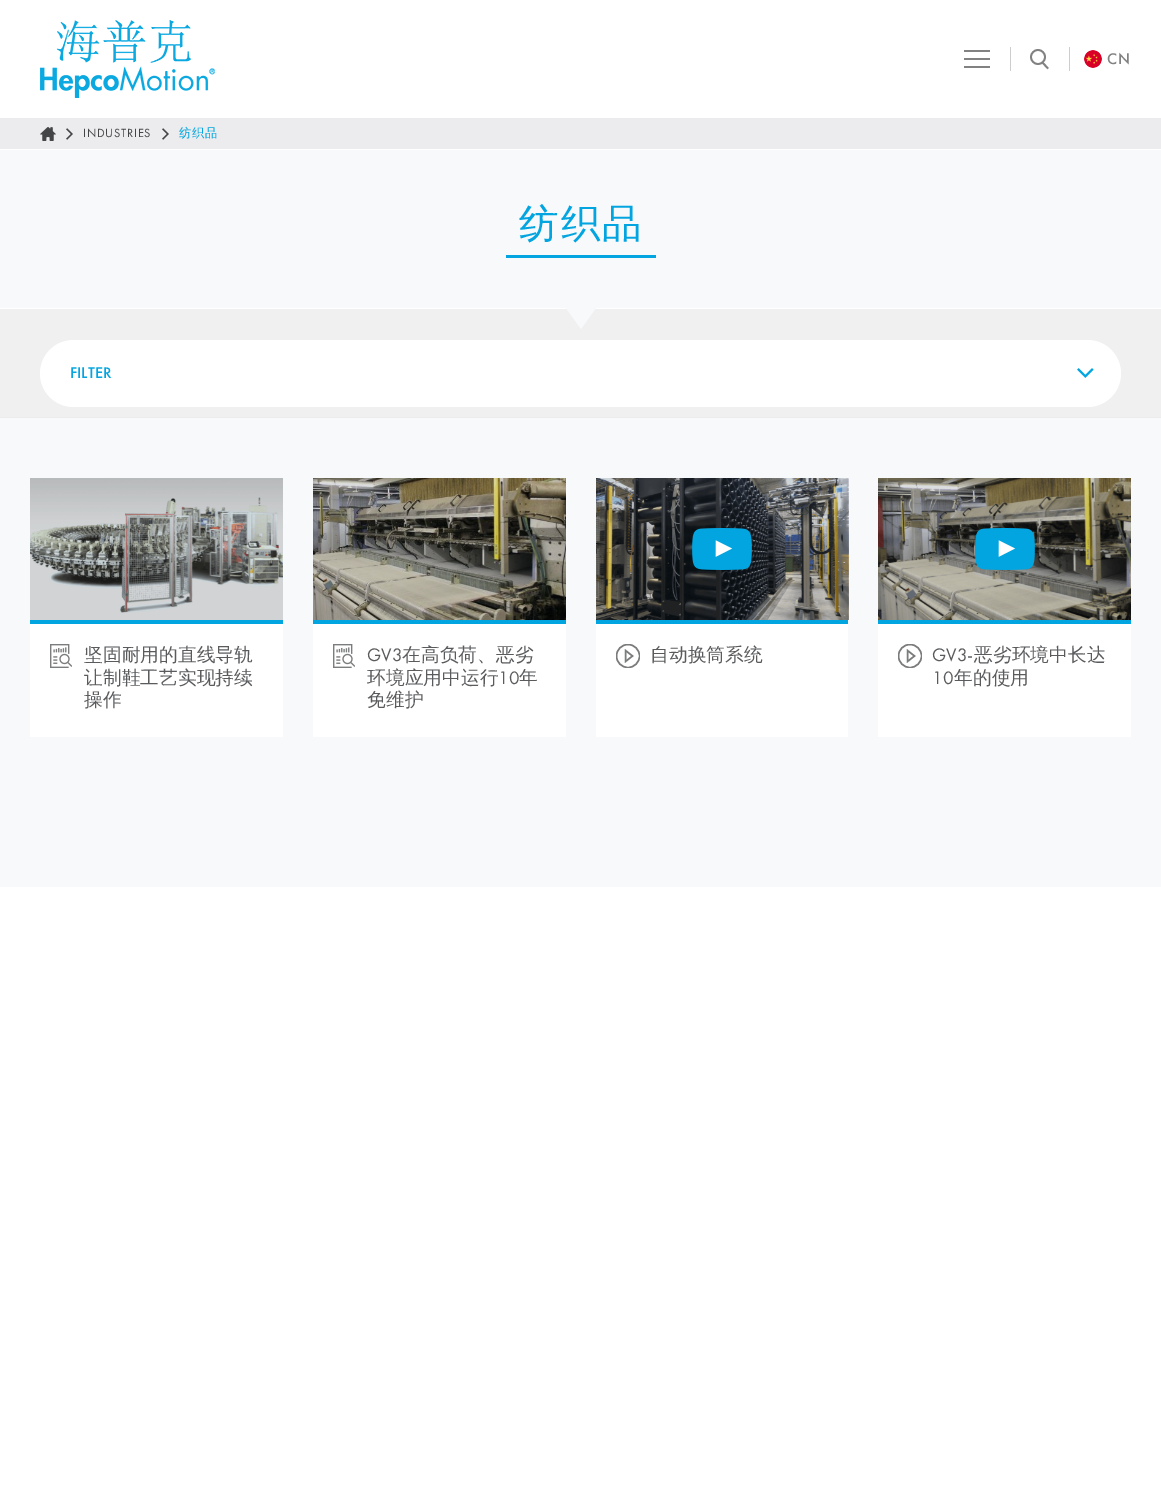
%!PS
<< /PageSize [1161 1512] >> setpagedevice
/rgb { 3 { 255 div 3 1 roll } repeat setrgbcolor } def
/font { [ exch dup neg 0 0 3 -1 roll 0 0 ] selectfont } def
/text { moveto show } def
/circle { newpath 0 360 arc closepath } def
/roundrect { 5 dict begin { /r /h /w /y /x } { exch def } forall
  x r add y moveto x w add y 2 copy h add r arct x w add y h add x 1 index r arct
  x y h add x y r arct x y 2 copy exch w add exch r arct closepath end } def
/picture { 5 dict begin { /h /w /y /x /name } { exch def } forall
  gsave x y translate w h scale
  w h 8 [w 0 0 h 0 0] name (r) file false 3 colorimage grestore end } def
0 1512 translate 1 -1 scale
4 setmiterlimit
255 255 255 rgb
0 0 1161 1512 rectfill
(img_01.rgb) 40 20 175 78 picture
130 130 130 rgb
964 58 26 2 rectfill
964 50 26 2 rectfill
964 66 26 2 rectfill
205 205 205 rgb
1010 47 1 24 rectfill
130 130 130 rgb
1.8 setlinewidth
1038 57 7 circle stroke
1042.5 62.5 moveto 5.5 6 rlineto stroke
205 205 205 rgb
1069 47 1 24 rectfill
(img_02.rgb) 1084 50 18 18 picture
236 236 238 rgb
0 118 1161 31 rectfill
(img_03.rgb) 40 127 16 14 picture
(img_04.rgb) 66 128 7 12 picture
(img_04.rgb) 162 128 7 12 picture
247 249 251 rgb
0 150 1161 158 rectfill
2 165 223 rgb
506 255 150 3 rectfill
240 240 240 rgb
0 309 1161 108 rectfill
247 249 251 rgb
566 308 moveto 30 0 rlineto -15 21 rlineto closepath fill
236 236 237 rgb
0 417 1161 1 rectfill
255 255 255 rgb
40 340 1081 67 33.5 roundrect fill
(img_05.rgb) 1077 368 17 10 picture
247 249 251 rgb
0 418 1161 469 rectfill
255 255 255 rgb
30 624 253 113 rectfill
2 165 223 rgb
30 620 253 4 rectfill
(img_06.rgb) 30 478 253 142 picture
(img_07.rgb) 50 644 22 24 picture
255 255 255 rgb
313 624 253 113 rectfill
2 165 223 rgb
313 620 253 4 rectfill
(img_08.rgb) 313 478 253 142 picture
(img_07.rgb) 333 644 22 24 picture
255 255 255 rgb
596 624 252 113 rectfill
2 165 223 rgb
596 620 252 4 rectfill
(img_09.rgb) 596 478 253 142 picture
(img_10.rgb) 692 528 60 42 picture
gsave
616 644 24 24 rectclip
123 124 125 rgb
1.5 setlinewidth
628 656 11.5 circle stroke
grestore
123 124 125 rgb
1.5 setlinewidth
625.5 661.5 moveto 7 -5.5 rlineto -7 -5.5 rlineto closepath stroke
255 255 255 rgb
878 624 253 113 rectfill
2 165 223 rgb
878 620 253 4 rectfill
(img_11.rgb) 878 478 253 142 picture
(img_12.rgb) 975 528 60 42 picture
gsave
898 644 24 24 rectclip
123 124 125 rgb
910 656 11.5 circle stroke
grestore
123 124 125 rgb
907.5 661.5 moveto 7 -5.5 rlineto -7 -5.5 rlineto closepath stroke
/FuturaPT-Medium 16 font
130 130 130 rgb
1107 64 moveto 1 0 (CN) ashow
/FuturaPT-Regular 12.25 font
68 69 71 rgb
83 137 moveto 0.75 0 (INDUSTRIES) ashow
/WenQuanYiZenHei-Medium 12.25 font
2 165 223 rgb
179 137 moveto 0.75 0 (纺织品) ashow
/WenQuanYiZenHei-Medium 39.5 font
519 237 moveto 2 0 (纺织品) ashow
/FuturaPT-Medium 16 font
(FILTER) 70 378 text
/WenQuanYiZenHei-Medium 18.75 font
90 91 93 rgb
(坚固耐用的直线导轨) 84 661 text
(让制鞋工艺实现持续) 84 684 text
(操作) 84 706 text
/FuturaPT-Regular 18.75 font
(GV3) 367 661 text
/WenQuanYiZenHei-Medium 18.75 font
(在高负荷、恶劣) 402 661 text
(环境应用中运行) 367 684 text
/FuturaPT-Regular 18.75 font
(10) 498 684 text
/WenQuanYiZenHei-Medium 18.75 font
(年) 519 684 text
(免维护) 367 706 text
(自动换筒系统) 650 661 text
/FuturaPT-Regular 18.75 font
(GV3-) 932 661 text
/WenQuanYiZenHei-Medium 18.75 font
(恶劣环境中长达) 974 661 text
/FuturaPT-Regular 18.75 font
(10) 932 684 text
/WenQuanYiZenHei-Medium 18.75 font
(年的使用) 954 684 text
showpage
